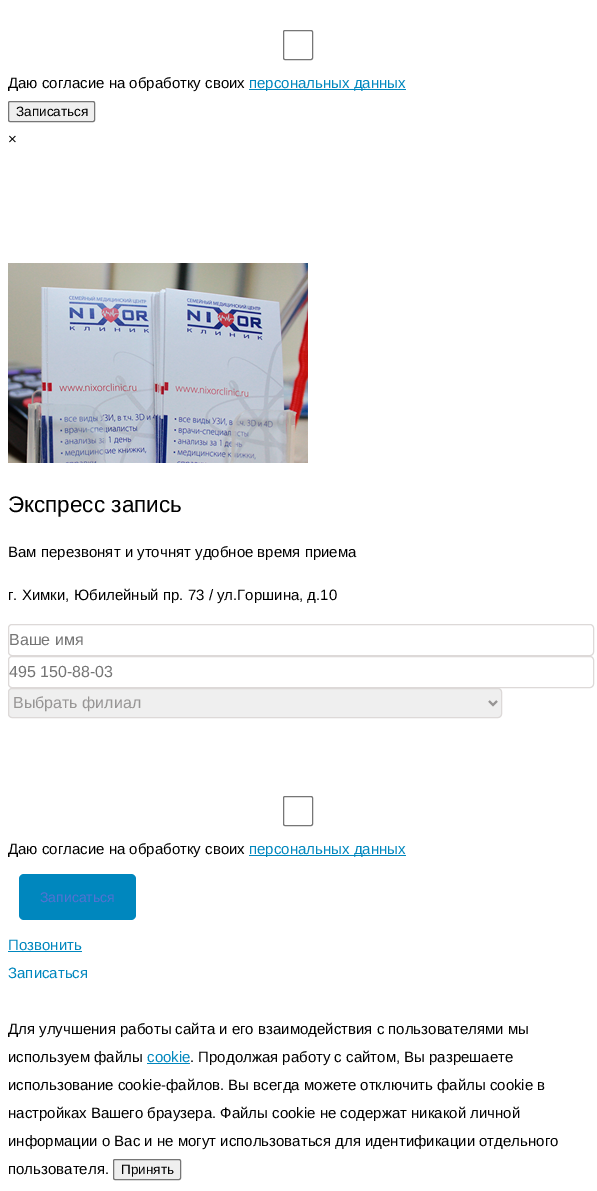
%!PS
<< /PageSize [597 1191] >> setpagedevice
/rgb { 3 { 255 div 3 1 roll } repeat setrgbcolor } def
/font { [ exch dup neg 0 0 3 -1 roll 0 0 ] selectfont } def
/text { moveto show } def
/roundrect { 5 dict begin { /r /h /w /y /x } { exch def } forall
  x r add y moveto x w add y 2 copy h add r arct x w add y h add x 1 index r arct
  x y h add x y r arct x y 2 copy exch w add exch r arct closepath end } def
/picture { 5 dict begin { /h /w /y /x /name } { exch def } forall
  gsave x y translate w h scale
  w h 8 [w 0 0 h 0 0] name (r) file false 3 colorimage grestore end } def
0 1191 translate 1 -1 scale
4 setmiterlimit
255 255 255 rgb
0 0 597 1191 rectfill
118 118 118 rgb
283.5 30.5 29 29 1.5 roundrect stroke
0 135 190 rgb
249 89 157 1 rectfill
239 239 239 rgb
8.5 101.5 86 20 1.5 roundrect gsave fill grestore
118 118 118 rgb
stroke
(img_01.rgb) 8 263 300 200 picture
221 217 216 rgb
8.5 624.5 585 31 3.5 roundrect stroke
8.5 656.5 585 31 3.5 roundrect stroke
239 239 239 rgb
8.5 688.5 493 29 3.5 roundrect gsave fill grestore
221 217 216 rgb
stroke
151 149 148 rgb
2 setlinewidth
489 701 moveto 4 4 rlineto 4 -4 rlineto stroke
118 118 118 rgb
1 setlinewidth
283.5 796.5 29 29 1.5 roundrect stroke
0 135 190 rgb
249 855 157 1 rectfill
19 874 117 46 5 roundrect fill
8 951 74 1 rectfill
147 1063 43 1 rectfill
239 239 239 rgb
113.5 1159.5 67 20 1.5 roundrect gsave fill grestore
118 118 118 rgb
stroke
/LiberationSans-Regular 15 font
0 0 0 rgb
(Даю согласие на обработку своих) 8 88 text
0 135 190 rgb
(персональных данных) 249 88 text
/LiberationSans-Regular 13.5 font
0 0 0 rgb
(Записаться) 16 116 text
/LiberationSans-Regular 15 font
(×) 8 144 text
/LiberationSans-Regular 22.5 font
(Экспресс запись) 8 512 text
/LiberationSans-Regular 15 font
(Вам перезвонят и уточнят удобное время приема) 8 557 text
(г. Химки, Юбилейный пр. 73 / ул.Горшина, д.10) 8 600 text
/LiberationSans-Regular 16 font
117 117 117 rgb
(Ваше имя) 9 645 text
(495 150-88-03) 9 677 text
151 149 148 rgb
(Выбрать филиал) 13 708 text
/LiberationSans-Regular 15 font
0 0 0 rgb
(Даю согласие на обработку своих) 8 854 text
0 135 190 rgb
(персональных данных) 249 854 text
/LiberationSans-Regular 14 font
84 114 210 rgb
(Записаться) 40 902 text
/LiberationSans-Regular 15 font
0 135 190 rgb
(Позвонить) 8 950 text
(Записаться) 8 978 text
0 0 0 rgb
(Для улучшения работы сайта и его взаимодействия с пользователями мы) 8 1034 text
(используем файлы) 8 1062 text
0 135 190 rgb
(cookie) 147 1062 text
0 0 0 rgb
(. Продолжая работу с сайтом, Вы разрешаете) 190 1062 text
(использование cookie-файлов. Вы всегда можете отключить файлы cookie в) 8 1090 text
(настройках Вашего браузера. Файлы cookie не содержат никакой личной) 8 1118 text
(информации о Вас и не могут использоваться для идентификации отдельного) 8 1146 text
(пользователя.) 8 1174 text
/LiberationSans-Regular 13.5 font
(Принять) 121 1174 text
showpage
